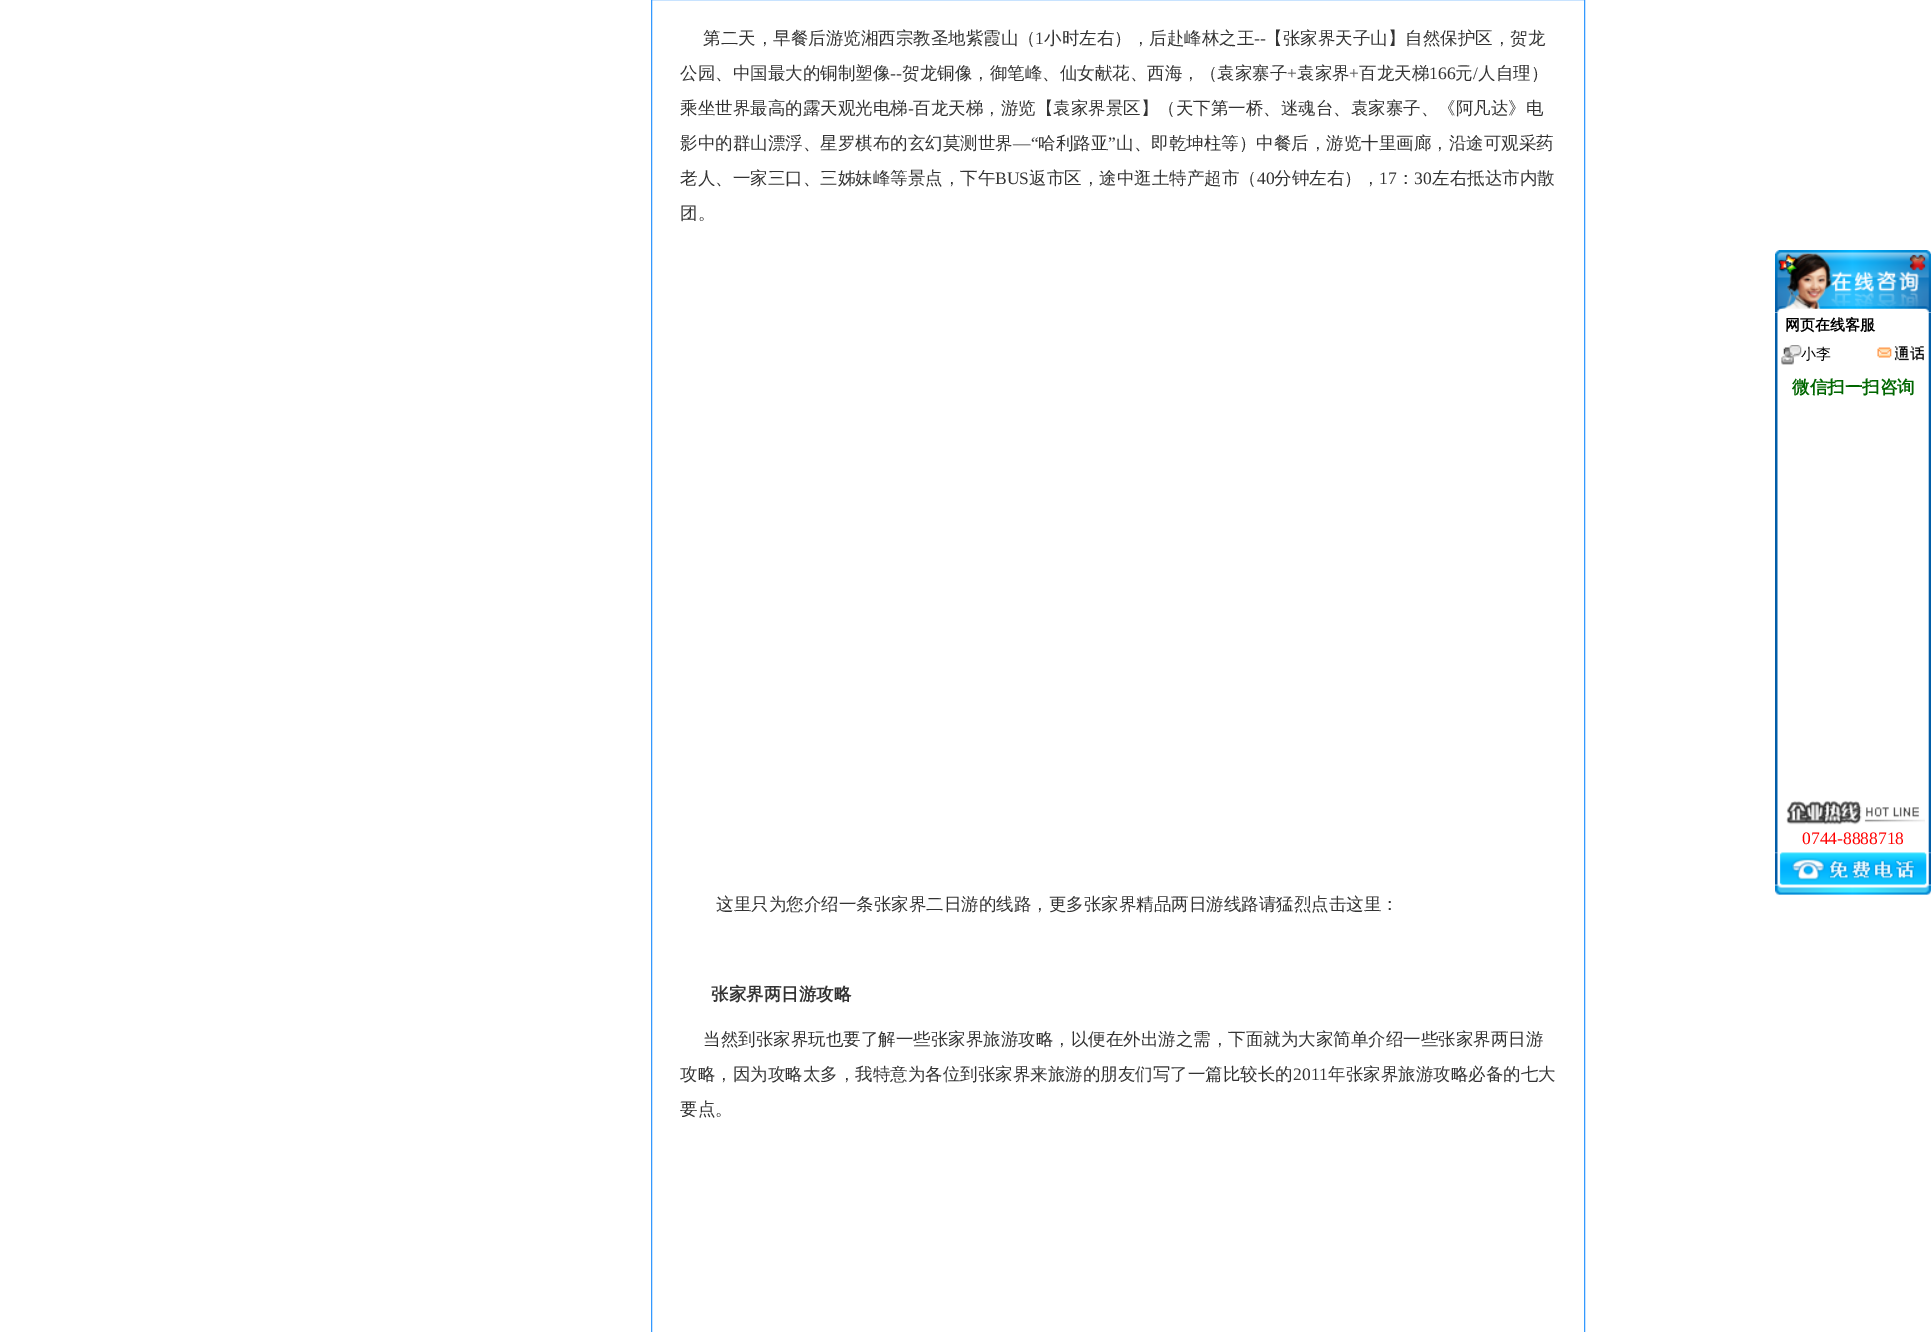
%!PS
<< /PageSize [1931 1332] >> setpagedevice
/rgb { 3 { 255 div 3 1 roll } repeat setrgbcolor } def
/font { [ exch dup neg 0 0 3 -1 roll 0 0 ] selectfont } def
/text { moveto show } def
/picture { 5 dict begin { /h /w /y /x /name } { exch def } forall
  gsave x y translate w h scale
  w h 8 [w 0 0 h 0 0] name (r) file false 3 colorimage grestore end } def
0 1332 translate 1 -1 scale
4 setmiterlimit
255 255 255 rgb
0 0 1931 1332 rectfill
51 153 255 rgb
651.5 -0.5 933 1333 rectstroke
(img_01.rgb) 1775 250 156 63 picture
(img_02.rgb) 1775 313 156 540 picture
(img_03.rgb) 1781 345 21 20 picture
(img_04.rgb) 1877 346 47 15 picture
(img_05.rgb) 1786 800 139 25 picture
(img_06.rgb) 1775 852 156 34 picture
(img_07.rgb) 1775 884 156 11 picture
/WenQuanYiZenHei-Medium 17.5 font
51 51 51 rgb
(第二天，早餐后游览湘西宗教圣地紫霞山（) 703 44 text
/LiberationSerif-Regular 17.5 font
(1) 1035 44 text
/WenQuanYiZenHei-Medium 17.5 font
(小时左右），后赴峰林之王) 1044 44 text
/LiberationSerif-Regular 17.5 font
(--) 1254 44 text
/WenQuanYiZenHei-Medium 17.5 font
(【张家界天子山】自然保护区，贺龙) 1265 44 text
(公园、中国最大的铜制塑像) 680 79 text
/LiberationSerif-Regular 17.5 font
(--) 890 79 text
/WenQuanYiZenHei-Medium 17.5 font
(贺龙铜像，御笔峰、仙女献花、西海，（袁家寨子) 902 79 text
/LiberationSerif-Regular 17.5 font
(+) 1287 79 text
/WenQuanYiZenHei-Medium 17.5 font
(袁家界) 1297 79 text
/LiberationSerif-Regular 17.5 font
(+) 1349 79 text
/WenQuanYiZenHei-Medium 17.5 font
(百龙天梯) 1359 79 text
/LiberationSerif-Regular 17.5 font
(166) 1429 79 text
/WenQuanYiZenHei-Medium 17.5 font
(元) 1455 79 text
/LiberationSerif-Regular 17.5 font
(/) 1473 79 text
/WenQuanYiZenHei-Medium 17.5 font
(人自理）) 1478 79 text
(乘坐世界最高的露天观光电梯) 680 114 text
/LiberationSerif-Regular 17.5 font
(-) 908 114 text
/WenQuanYiZenHei-Medium 17.5 font
(百龙天梯，游览【袁家界景区】（天下第一桥、迷魂台、袁家寨子、《阿凡达》电) 913 114 text
(影中的群山漂浮、星罗棋布的玄幻莫测世界) 680 149 text
/LiberationSerif-Regular 17.5 font
(—“) 1013 149 text
/WenQuanYiZenHei-Medium 17.5 font
(哈利路亚) 1038 149 text
/LiberationSerif-Regular 17.5 font
(”) 1108 149 text
/WenQuanYiZenHei-Medium 17.5 font
(山、即乾坤柱等）中餐后，游览十里画廊，沿途可观采药) 1116 149 text
(老人、一家三口、三姊妹峰等景点，下午) 680 184 text
/LiberationSerif-Regular 17.5 font
(BUS) 995 184 text
/WenQuanYiZenHei-Medium 17.5 font
(返市区，途中逛土特产超市（) 1029 184 text
/LiberationSerif-Regular 17.5 font
(40) 1257 184 text
/WenQuanYiZenHei-Medium 17.5 font
(分钟左右），) 1274 184 text
/LiberationSerif-Regular 17.5 font
(17) 1379 184 text
/WenQuanYiZenHei-Medium 17.5 font
(：) 1397 184 text
/LiberationSerif-Regular 17.5 font
(30) 1414 184 text
/WenQuanYiZenHei-Medium 17.5 font
(左右抵达市内散) 1432 184 text
(团。) 680 219 text
(这里只为您介绍一条张家界二日游的线路，更多张家界精品两日游线路请猛烈点击这里：) 716 910 text
/WenQuanYiZenHei-Bold 17.5 font
(张家界两日游攻略) 711 1000 text
/WenQuanYiZenHei-Medium 17.5 font
(当然到张家界玩也要了解一些张家界旅游攻略，以便在外出游之需，下面就为大家简单介绍一些张家界两日游) 703 1045 text
(攻略，因为攻略太多，我特意为各位到张家界来旅游的朋友们写了一篇比较长的) 680 1080 text
/LiberationSerif-Regular 17.5 font
(2011) 1293 1080 text
/WenQuanYiZenHei-Medium 17.5 font
(年张家界旅游攻略必备的七大) 1328 1080 text
(要点。) 680 1115 text
/WenQuanYiZenHei-Bold 15 font
0 0 0 rgb
(网页在线客服) 1785 330 text
/WenQuanYiZenHei-Medium 15 font
(小李) 1801 359 text
/WenQuanYiZenHei-Bold 17.5 font
0 102 0 rgb
(微信扫一扫咨询) 1792 393 text
/LiberationSerif-Regular 17.5 font
255 0 0 rgb
(0744-8888718) 1802 844 text
showpage
